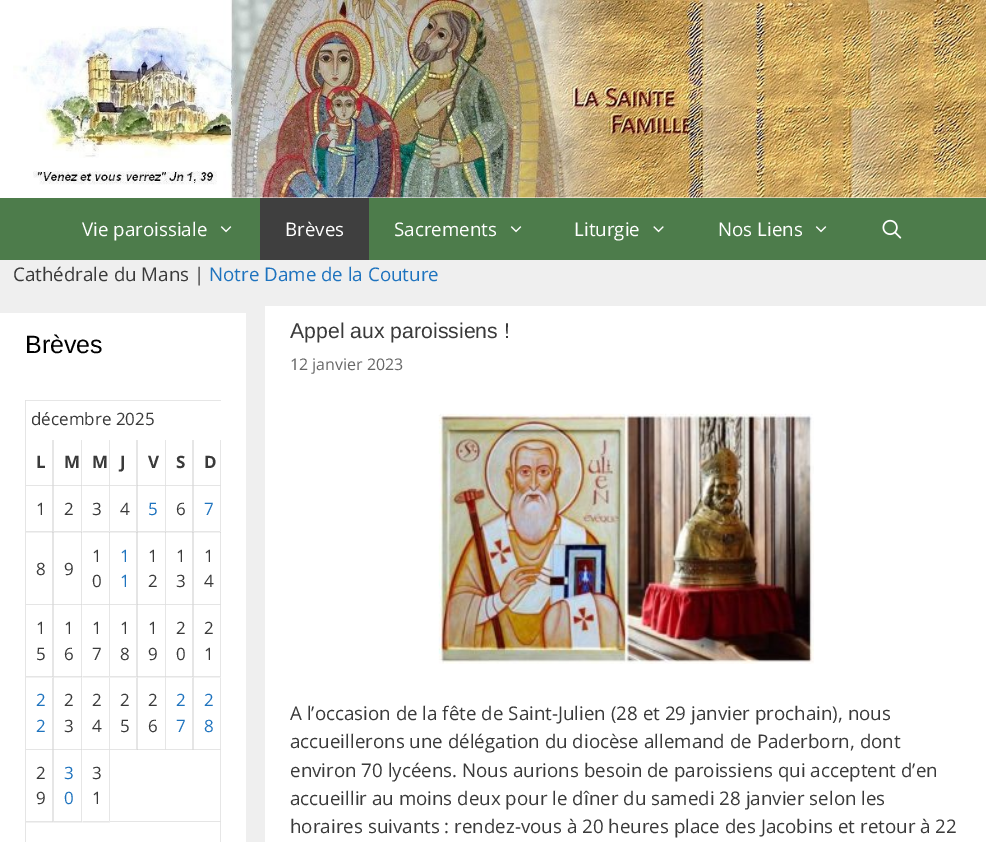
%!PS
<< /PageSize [986 842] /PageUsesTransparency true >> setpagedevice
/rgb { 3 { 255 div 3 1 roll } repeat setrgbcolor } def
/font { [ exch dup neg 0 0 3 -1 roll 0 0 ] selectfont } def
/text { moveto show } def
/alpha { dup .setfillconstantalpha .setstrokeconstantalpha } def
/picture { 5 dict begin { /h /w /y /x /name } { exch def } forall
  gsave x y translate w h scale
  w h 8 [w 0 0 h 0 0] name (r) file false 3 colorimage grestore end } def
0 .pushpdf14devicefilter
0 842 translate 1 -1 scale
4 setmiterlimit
239 239 239 rgb
0 0 986 842 rectfill
255 255 255 rgb
0 0 986 198 rectfill
(img_01.rgb) 13 0 973 198 picture
77 124 75 rgb
0 198 986 62 rectfill
(img_02.rgb) 220 226 12 7 picture
63 63 63 rgb
260 198 109 62 rectfill
(img_02.rgb) 510 226 12 7 picture
(img_03.rgb) 653 226 11 7 picture
(img_02.rgb) 815 226 12 7 picture
(img_04.rgb) 882 219 20 20 picture
255 255 255 rgb
0 313 246 529 rectfill
230 230 230 rgb
25 400 moveto 196 0 rlineto 0 1 rlineto -195 0 rlineto closepath fill
0.1 alpha
0 0 0 rgb
25 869 moveto 0 -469 rlineto 1 1 rlineto 0 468 rlineto closepath fill
1 alpha
230 230 230 rgb
54 440 moveto 0 46 rlineto -2 -1 rlineto 0 -45 rlineto closepath fill
0.1 alpha
0 0 0 rgb
54 486 moveto -28 0 rlineto 0 -1 rlineto 26.5 0 rlineto closepath fill
1 alpha
230 230 230 rgb
82 440 moveto 0 46 rlineto -1 -1 rlineto 0 -45 rlineto closepath fill
0.1 alpha
0 0 0 rgb
82.5 486 moveto -28.5 0 rlineto 0 -1 rlineto 27 0 rlineto closepath fill
1 alpha
230 230 230 rgb
110 440 moveto 0 46 rlineto -1 -1 rlineto 0 -45 rlineto closepath fill
0.1 alpha
0 0 0 rgb
110 486 moveto -27.5 0 rlineto 0 -1 rlineto 26.5 0 rlineto closepath fill
1 alpha
230 230 230 rgb
138 440 moveto 0 46 rlineto -2 -1 rlineto 0 -45 rlineto closepath fill
0.1 alpha
0 0 0 rgb
137.5 486 moveto -27.5 0 rlineto 0 -1 rlineto 26 0 rlineto closepath fill
1 alpha
230 230 230 rgb
166 440 moveto 0 46 rlineto -1 -1 rlineto 0 -45 rlineto closepath fill
0.1 alpha
0 0 0 rgb
166 486 moveto -28.5 0 rlineto 0 -1 rlineto 27.5 0 rlineto closepath fill
1 alpha
230 230 230 rgb
194 440 moveto 0 46 rlineto -2 -1 rlineto 0 -45 rlineto closepath fill
0.1 alpha
0 0 0 rgb
194 486 moveto -28 0 rlineto 0 -1 rlineto 26.5 0 rlineto closepath fill
1 alpha
230 230 230 rgb
221 440 moveto 0 46 rlineto -1 -1 rlineto 0 -45 rlineto closepath fill
0.1 alpha
0 0 0 rgb
221 486 moveto -27 0 rlineto 0 -1 rlineto 26 0 rlineto closepath fill
1 alpha
230 230 230 rgb
54 486 moveto 0 46 rlineto -2 -1 rlineto 0 -45 rlineto closepath fill
0.1 alpha
0 0 0 rgb
54 532.5 moveto -28 0 rlineto 0 -1.5 rlineto 26.5 0 rlineto closepath fill
1 alpha
230 230 230 rgb
82 486 moveto 0 46 rlineto -1 -1 rlineto 0 -45 rlineto closepath fill
0.1 alpha
0 0 0 rgb
82.5 532.5 moveto -28.5 0 rlineto 0 -1.5 rlineto 27 0 rlineto closepath fill
1 alpha
230 230 230 rgb
110 486 moveto 0 46 rlineto -1 -1 rlineto 0 -45 rlineto closepath fill
110 532.5 moveto -27.5 0 rlineto 0 -1.5 rlineto 26.5 0 rlineto closepath 138 486 moveto 0 46 rlineto -2 -1 rlineto 0 -45 rlineto closepath fill
0.1 alpha
0 0 0 rgb
137.5 532.5 moveto -27.5 0 rlineto 0 -1.5 rlineto 26 0 rlineto closepath fill
1 alpha
230 230 230 rgb
166 486 moveto 0 46 rlineto -1 -1 rlineto 0 -45 rlineto closepath fill
0.1 alpha
0 0 0 rgb
166 532.5 moveto -28.5 0 rlineto 0 -1.5 rlineto 27.5 0 rlineto closepath fill
1 alpha
230 230 230 rgb
194 486 moveto 0 46 rlineto -2 -1 rlineto 0 -45 rlineto closepath fill
0.1 alpha
0 0 0 rgb
194 532.5 moveto -28 0 rlineto 0 -1.5 rlineto 26.5 0 rlineto closepath fill
1 alpha
230 230 230 rgb
221 486 moveto 0 46 rlineto -1 -1 rlineto 0 -45 rlineto closepath fill
221 532.5 moveto -27 0 rlineto 0 -1.5 rlineto 26 0 rlineto closepath fill
0.1 alpha
0 0 0 rgb
54 532 moveto 0 73 rlineto -2 -1 rlineto 0 -72 rlineto closepath fill
54 605 moveto -28 0 rlineto 0 -1 rlineto 26.5 0 rlineto closepath fill
82 532 moveto 0 73 rlineto -1 -1 rlineto 0 -72 rlineto closepath fill
82.5 605 moveto -28.5 0 rlineto 0 -1 rlineto 27 0 rlineto closepath fill
110 532 moveto 0 73 rlineto -1 -1 rlineto 0 -72 rlineto closepath fill
110 605 moveto -27.5 0 rlineto 0 -1 rlineto 26.5 0 rlineto closepath fill
138 532 moveto 0 73 rlineto -2 -1 rlineto 0 -72 rlineto closepath fill
137.5 605 moveto -27.5 0 rlineto 0 -1 rlineto 26 0 rlineto closepath fill
166 532 moveto 0 73 rlineto -1 -1 rlineto 0 -72 rlineto closepath fill
166 605 moveto -28.5 0 rlineto 0 -1 rlineto 27.5 0 rlineto closepath fill
194 532 moveto 0 73 rlineto -2 -1 rlineto 0 -72 rlineto closepath fill
194 605 moveto -28 0 rlineto 0 -1 rlineto 26.5 0 rlineto closepath fill
221 532 moveto 0 73 rlineto -1 -1 rlineto 0 -72 rlineto closepath fill
221 605 moveto -27 0 rlineto 0 -1 rlineto 26 0 rlineto closepath fill
1 alpha
230 230 230 rgb
54 605 moveto 0 73 rlineto -2 -2 rlineto 0 -71 rlineto closepath fill
0.1 alpha
0 0 0 rgb
54 677.5 moveto -28 0 rlineto 0 -1.5 rlineto 26.5 0 rlineto closepath fill
1 alpha
230 230 230 rgb
82 605 moveto 0 73 rlineto -1 -2 rlineto 0 -71 rlineto closepath fill
0.1 alpha
0 0 0 rgb
82.5 677.5 moveto -28.5 0 rlineto 0 -1.5 rlineto 27 0 rlineto closepath fill
1 alpha
230 230 230 rgb
110 605 moveto 0 73 rlineto -1 -2 rlineto 0 -71 rlineto closepath fill
110 677.5 moveto -27.5 0 rlineto 0 -1.5 rlineto 26.5 0 rlineto closepath fill
138 605 moveto 0 73 rlineto -2 -2 rlineto 0 -71 rlineto closepath fill
0.1 alpha
0 0 0 rgb
137.5 677.5 moveto -27.5 0 rlineto 0 -1.5 rlineto 26 0 rlineto closepath fill
1 alpha
230 230 230 rgb
166 605 moveto 0 73 rlineto -1 -2 rlineto 0 -71 rlineto closepath fill
0.1 alpha
0 0 0 rgb
166 677.5 moveto -28.5 0 rlineto 0 -1.5 rlineto 27.5 0 rlineto closepath fill
1 alpha
230 230 230 rgb
194 605 moveto 0 73 rlineto -2 -2 rlineto 0 -71 rlineto closepath fill
0.1 alpha
0 0 0 rgb
194 677.5 moveto -28 0 rlineto 0 -1.5 rlineto 26.5 0 rlineto closepath fill
1 alpha
230 230 230 rgb
221 605 moveto 0 73 rlineto -1 -2 rlineto 0 -71 rlineto closepath fill
221 677.5 moveto -27 0 rlineto 0 -1.5 rlineto 26 0 rlineto closepath fill
54 678 moveto 0 72 rlineto -2 -1 rlineto 0 -71 rlineto closepath fill
0.1 alpha
0 0 0 rgb
54 750 moveto -28 0 rlineto 0 -1 rlineto 26.5 0 rlineto closepath fill
1 alpha
230 230 230 rgb
82 678 moveto 0 72 rlineto -1 -1 rlineto 0 -71 rlineto closepath fill
0.1 alpha
0 0 0 rgb
82.5 750 moveto -28.5 0 rlineto 0 -1 rlineto 27 0 rlineto closepath fill
1 alpha
230 230 230 rgb
110 678 moveto 0 72 rlineto -1 -1 rlineto 0 -71 rlineto closepath fill
0.1 alpha
0 0 0 rgb
110 750 moveto -27.5 0 rlineto 0 -1 rlineto 26.5 0 rlineto closepath fill
1 alpha
230 230 230 rgb
138 678 moveto 0 72 rlineto -2 -1 rlineto 0 -71 rlineto closepath fill
0.1 alpha
0 0 0 rgb
137.5 750 moveto -27.5 0 rlineto 0 -1 rlineto 26 0 rlineto closepath fill
1 alpha
230 230 230 rgb
166 678 moveto 0 72 rlineto -1 -1 rlineto 0 -71 rlineto closepath fill
0.1 alpha
0 0 0 rgb
166 750 moveto -28.5 0 rlineto 0 -1 rlineto 27.5 0 rlineto closepath fill
1 alpha
230 230 230 rgb
194 678 moveto 0 72 rlineto -2 -1 rlineto 0 -71 rlineto closepath fill
0.1 alpha
0 0 0 rgb
194 750 moveto -28 0 rlineto 0 -1 rlineto 26.5 0 rlineto closepath fill
1 alpha
230 230 230 rgb
221 678 moveto 0 72 rlineto -1 -1 rlineto 0 -71 rlineto closepath fill
0.1 alpha
0 0 0 rgb
221 750 moveto -27 0 rlineto 0 -1 rlineto 26 0 rlineto closepath fill
1 alpha
230 230 230 rgb
54 750 moveto 0 72 rlineto -2 -1 rlineto 0 -71 rlineto closepath fill
0.1 alpha
0 0 0 rgb
54 822.5 moveto -28 0 rlineto 0 -1.5 rlineto 26.5 0 rlineto closepath fill
1 alpha
230 230 230 rgb
82 750 moveto 0 72 rlineto -1 -1 rlineto 0 -71 rlineto closepath fill
0.1 alpha
0 0 0 rgb
82.5 822.5 moveto -28.5 0 rlineto 0 -1.5 rlineto 27 0 rlineto closepath fill
1 alpha
230 230 230 rgb
110 750 moveto 0 72 rlineto -1 -1 rlineto 0 -71 rlineto closepath fill
110 822.5 moveto -27.5 0 rlineto 0 -1.5 rlineto 26.5 0 rlineto closepath fill
221 750 moveto 0 72 rlineto -1 -1 rlineto 0 -71 rlineto closepath fill
0.1 alpha
0 0 0 rgb
221 822 moveto -111 0 rlineto 0 -1 rlineto 110 0 rlineto closepath fill
1 alpha
230 230 230 rgb
221 822 moveto 0 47 rlineto -1 -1 rlineto 0 -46 rlineto closepath fill
255 255 255 rgb
265 306 721 536 rectfill
(img_05.rgb) 438 413 376 251 picture
/OpenSans-Regular 18.75 font
(Vie paroissiale) 82 236 text
(Brèves) 285 236 text
(Sacrements) 394 236 text
(Liturgie) 574 236 text
(Nos Liens) 718 236 text
58 58 58 rgb
(Cathédrale du Mans |) 13 281 text
30 115 190 rgb
(Notre Dame de la Couture) 209 281 text
/LiberationSans-Regular 25 font
0 0 0 rgb
(Brèves) 25 353 text
/OpenSans-Regular 17 font
58 58 58 rgb
(décembre 2025) 31 425 text
/OpenSans-Bold 17 font
(L) 36 468 text
(M) 64 468 text
(M) 92 468 text
(J) 120 468 text
(V) 148 468 text
(S) 176 468 text
(D) 204 468 text
/OpenSans-Regular 17 font
(1) 36 515 text
(2) 64 515 text
(3) 92 515 text
(4) 120 515 text
30 115 190 rgb
(5) 148 515 text
58 58 58 rgb
(6) 176 515 text
30 115 190 rgb
(7) 204 515 text
58 58 58 rgb
(8) 36 575 text
(9) 64 575 text
(1) 92 562 text
(0) 92 587 text
30 115 190 rgb
(1) 120 562 text
(1) 120 587 text
58 58 58 rgb
(1) 148 562 text
(2) 148 587 text
(1) 176 562 text
(3) 176 587 text
(1) 204 562 text
(4) 204 587 text
(1) 36 634 text
(5) 36 660 text
(1) 64 634 text
(6) 64 660 text
(1) 92 634 text
(7) 92 660 text
(1) 120 634 text
(8) 120 660 text
(1) 148 634 text
(9) 148 660 text
(2) 176 634 text
(0) 176 660 text
(2) 204 634 text
(1) 204 660 text
30 115 190 rgb
(2) 36 706 text
(2) 36 732 text
58 58 58 rgb
(2) 64 706 text
(3) 64 732 text
(2) 92 706 text
(4) 92 732 text
(2) 120 706 text
(5) 120 732 text
(2) 148 706 text
(6) 148 732 text
30 115 190 rgb
(2) 176 706 text
(7) 176 732 text
(2) 204 706 text
(8) 204 732 text
58 58 58 rgb
(2) 36 779 text
(9) 36 804 text
30 115 190 rgb
(3) 64 779 text
(0) 64 804 text
58 58 58 rgb
(3) 92 779 text
(1) 92 804 text
/LiberationSans-Regular 21.25 font
(Appel aux paroissiens !) 290 338 text
/OpenSans-Regular 16 font
102 102 102 rgb
(12 janvier 2023) 290 370 text
/OpenSans-Regular 18.75 font
58 58 58 rgb
(A l’occasion de la fête de Saint-Julien \(28 et 29 janvier prochain\), nous) 290 720 text
(accueillerons une délégation du diocèse allemand de Paderborn, dont) 290 748 text
(environ 70 lycéens. Nous aurions besoin de paroissiens qui acceptent d’en) 290 777 text
(accueillir au moins deux pour le dîner du samedi 28 janvier selon les) 290 805 text
(horaires suivants : rendez-vous à 20 heures place des Jacobins et retour à 22) 290 833 text
.poppdf14devicefilter showpage
